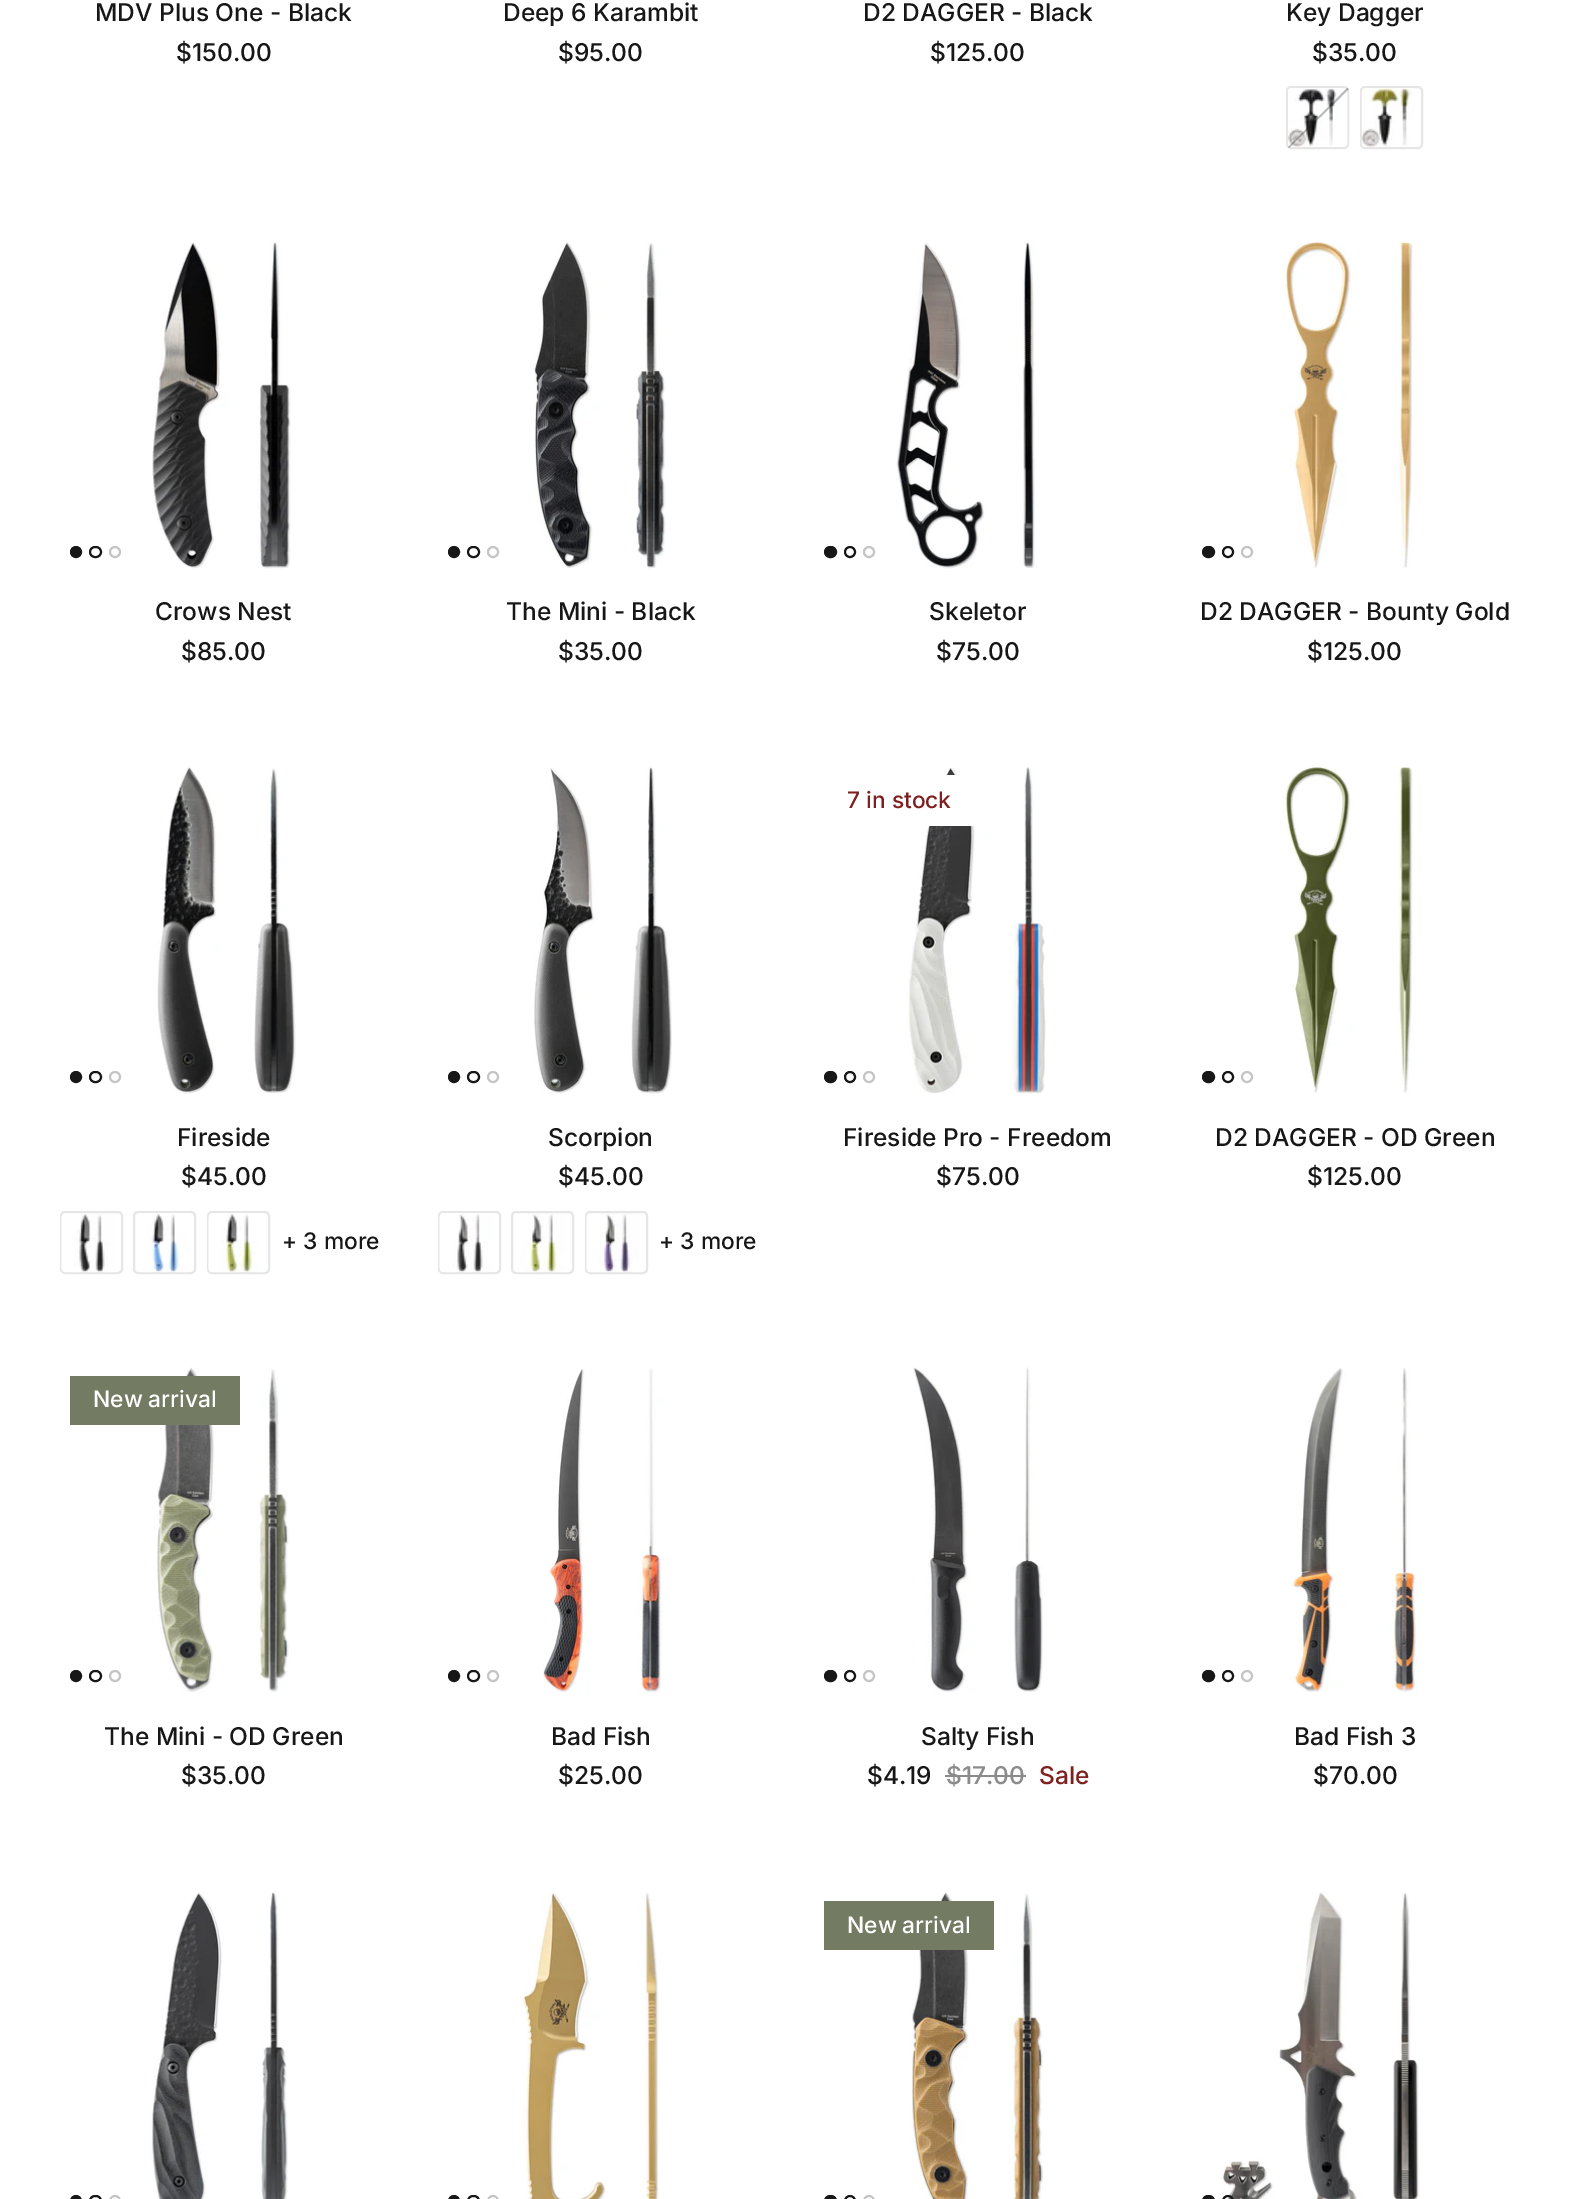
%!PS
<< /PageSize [1578 2199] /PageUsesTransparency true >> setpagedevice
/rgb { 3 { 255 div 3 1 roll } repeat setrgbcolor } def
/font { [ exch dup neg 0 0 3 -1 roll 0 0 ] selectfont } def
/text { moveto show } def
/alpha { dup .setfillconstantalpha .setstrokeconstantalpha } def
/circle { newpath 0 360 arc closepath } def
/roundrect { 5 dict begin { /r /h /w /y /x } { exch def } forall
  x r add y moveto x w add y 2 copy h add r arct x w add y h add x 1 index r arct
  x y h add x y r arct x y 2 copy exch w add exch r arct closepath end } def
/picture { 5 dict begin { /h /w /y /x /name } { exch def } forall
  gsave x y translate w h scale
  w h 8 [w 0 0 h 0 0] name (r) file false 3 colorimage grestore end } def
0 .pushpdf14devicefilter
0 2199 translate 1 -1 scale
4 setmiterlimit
255 255 255 rgb
0 0 1578 2199 rectfill
230 230 230 rgb
2 setlinewidth
1287 87 61 61 4 roundrect stroke
0.4 alpha
255 255 255 rgb
1288 88 60 59 5 roundrect fill
1 alpha
(img_01.rgb) 1288 88 53 59 picture
0.3 alpha
23 23 23 rgb
1288 147 moveto 59 -59 rlineto 2 1 rlineto -60 59 rlineto closepath fill
1 alpha
230 230 230 rgb
1361 87 61 61 4 roundrect stroke
(img_02.rgb) 1361 88 53 59 picture
23 23 23 rgb
76 552 5 circle gsave fill grestore
stroke
90 547 11 10 5 roundrect stroke
197 197 197 rgb
115 552 5 circle stroke
(img_03.rgb) 152 242 139 327 picture
23 23 23 rgb
454 552 5 circle gsave fill grestore
stroke
468 547 11 10 5 roundrect stroke
197 197 197 rgb
493 552 5 circle stroke
(img_04.rgb) 534 242 133 327 picture
23 23 23 rgb
825 547 11 10 5 roundrect gsave fill grestore
stroke
850 552 5 circle stroke
197 197 197 rgb
869 552 5 circle stroke
(img_05.rgb) 896 242 141 327 picture
23 23 23 rgb
1203 547 11 10 5 roundrect gsave fill grestore
stroke
1228 552 5 circle stroke
197 197 197 rgb
1247 552 5 circle stroke
(img_06.rgb) 1282 241 131 327 picture
23 23 23 rgb
76 1077 5 circle gsave fill grestore
stroke
90 1072 11 10 5 roundrect stroke
197 197 197 rgb
115 1077 5 circle stroke
(img_07.rgb) 157 767 139 327 picture
230 230 230 rgb
61 1212 61 61 4 roundrect stroke
(img_08.rgb) 61 1214 56 59 picture
134 1212 61 61 4 roundrect stroke
(img_09.rgb) 139 1213 51 60 picture
208 1212 61 61 4 roundrect stroke
(img_10.rgb) 208 1213 56 60 picture
23 23 23 rgb
454 1077 5 circle gsave fill grestore
stroke
468 1072 11 10 5 roundrect stroke
197 197 197 rgb
493 1077 5 circle stroke
(img_11.rgb) 534 767 138 327 picture
230 230 230 rgb
439 1212 61 61 4 roundrect stroke
(img_12.rgb) 439 1213 56 60 picture
512 1212 61 61 4 roundrect stroke
(img_13.rgb) 517 1214 51 59 picture
586 1212 61 61 4 roundrect stroke
(img_14.rgb) 586 1214 56 59 picture
(img_15.rgb) 908 767 138 330 picture
255 255 255 rgb
928 775 47 51 rectfill
23 23 23 rgb
825 1072 11 10 5 roundrect gsave fill grestore
stroke
850 1077 5 circle stroke
197 197 197 rgb
869 1077 5 circle stroke
23 23 23 rgb
1203 1072 11 10 5 roundrect gsave fill grestore
stroke
1228 1077 5 circle stroke
197 197 197 rgb
1247 1077 5 circle stroke
(img_16.rgb) 1283 766 130 327 picture
(img_17.rgb) 157 1367 132 325 picture
115 123 99 rgb
70 1376 170 49 rectfill
23 23 23 rgb
76 1676 5 circle gsave fill grestore
stroke
90 1671 11 10 5 roundrect stroke
197 197 197 rgb
115 1676 5 circle stroke
23 23 23 rgb
454 1676 5 circle gsave fill grestore
stroke
468 1671 11 10 5 roundrect stroke
197 197 197 rgb
493 1676 5 circle stroke
(img_18.rgb) 543 1368 120 328 picture
23 23 23 rgb
825 1671 11 10 5 roundrect gsave fill grestore
stroke
850 1676 5 circle stroke
197 197 197 rgb
869 1676 5 circle stroke
(img_19.rgb) 913 1367 130 325 picture
139 139 139 rgb
945 1775 81 2 rectfill
23 23 23 rgb
1203 1671 11 10 5 roundrect gsave fill grestore
stroke
1228 1676 5 circle stroke
197 197 197 rgb
1247 1676 5 circle stroke
(img_20.rgb) 1292 1367 126 326 picture
(img_21.rgb) 150 1892 138 307 picture
23 23 23 rgb
76 2201 5 circle gsave fill grestore
stroke
90 2196 11 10 5 roundrect stroke
197 197 197 rgb
115 2201 5 circle stroke
(img_22.rgb) 520 1892 139 307 picture
23 23 23 rgb
454 2201 5 circle gsave fill grestore
stroke
468 2196 11 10 5 roundrect stroke
197 197 197 rgb
493 2201 5 circle stroke
(img_23.rgb) 911 1892 133 307 picture
115 123 99 rgb
824 1901 170 49 rectfill
23 23 23 rgb
825 2196 11 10 5 roundrect gsave fill grestore
stroke
850 2201 5 circle stroke
197 197 197 rgb
869 2201 5 circle stroke
(img_24.rgb) 1221 1892 199 307 picture
23 23 23 rgb
1203 2196 11 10 5 roundrect gsave fill grestore
stroke
1228 2201 5 circle stroke
0.25 alpha
1247 2201 5 circle stroke
/Inter-Medium 24.5 font
1 alpha
(MDV Plus One - Black) 95 21 text
($150.00) 176 61 text
(Deep 6 Karambit) 503 21 text
($95.00) 558 61 text
(D2 DAGGER - Black) 863 21 text
($125.00) 930 61 text
(Key Dagger) 1286 21 text
($35.00) 1312 61 text
(Crows Nest) 155 620 text
($85.00) 181 660 text
(The Mini - Black) 506 620 text
($35.00) 558 660 text
(Skeletor) 929 620 text
($75.00) 936 660 text
(D2 DAGGER - Bounty Gold) 1200 620 text
($125.00) 1307 660 text
(Fireside) 177 1146 text
($45.00) 181 1185 text
/Inter-Medium 22.75 font
(+ 3 more) 282 1249 text
/Inter-Medium 24.5 font
(Scorpion) 548 1146 text
($45.00) 558 1185 text
/Inter-Medium 22.75 font
(+ 3 more) 659 1249 text
127 32 32 rgb
(7 in stock) 847 808 text
/Inter-Medium 24.5 font
23 23 23 rgb
(Fireside Pro - Freedom) 843 1146 text
($75.00) 936 1185 text
(D2 DAGGER - OD Green) 1215 1146 text
($125.00) 1307 1185 text
/Inter-Medium 22.75 font
255 255 255 rgb
(New arrival) 93 1407 text
/Inter-Medium 24.5 font
23 23 23 rgb
(The Mini - OD Green) 104 1745 text
($35.00) 181 1784 text
(Bad Fish) 551 1745 text
($25.00) 558 1784 text
(Salty Fish) 921 1745 text
($4.19) 867 1784 text
139 139 139 rgb
($17.00) 946 1784 text
127 32 32 rgb
(Sale) 1039 1784 text
23 23 23 rgb
(Bad Fish 3) 1294 1745 text
($70.00) 1313 1784 text
/Inter-Medium 22.75 font
255 255 255 rgb
(New arrival) 847 1933 text
.poppdf14devicefilter showpage
